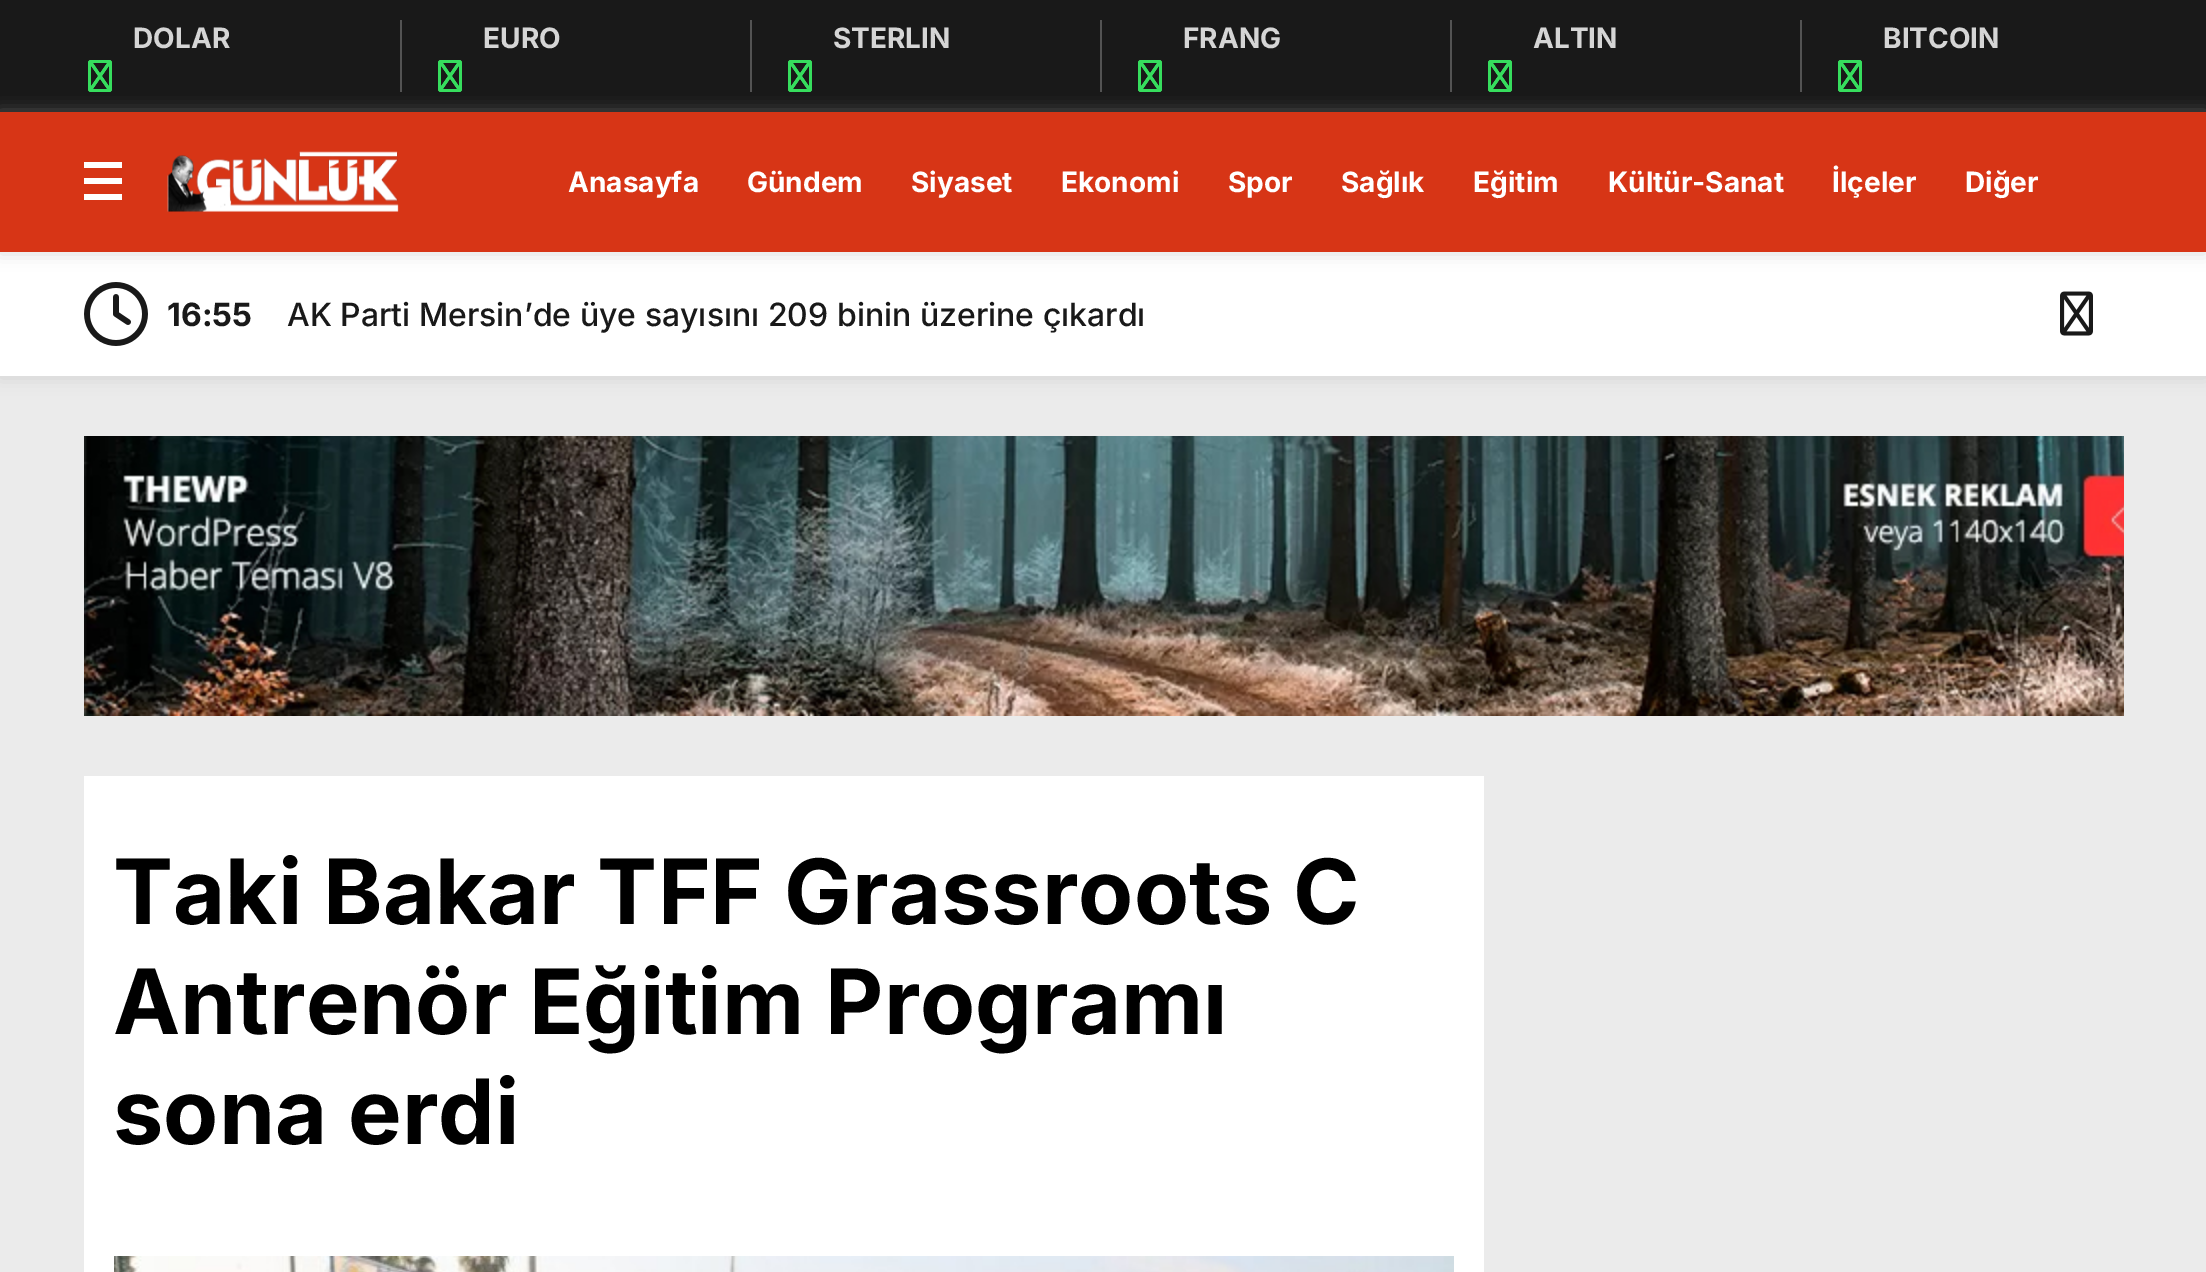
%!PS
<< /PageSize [2206 1272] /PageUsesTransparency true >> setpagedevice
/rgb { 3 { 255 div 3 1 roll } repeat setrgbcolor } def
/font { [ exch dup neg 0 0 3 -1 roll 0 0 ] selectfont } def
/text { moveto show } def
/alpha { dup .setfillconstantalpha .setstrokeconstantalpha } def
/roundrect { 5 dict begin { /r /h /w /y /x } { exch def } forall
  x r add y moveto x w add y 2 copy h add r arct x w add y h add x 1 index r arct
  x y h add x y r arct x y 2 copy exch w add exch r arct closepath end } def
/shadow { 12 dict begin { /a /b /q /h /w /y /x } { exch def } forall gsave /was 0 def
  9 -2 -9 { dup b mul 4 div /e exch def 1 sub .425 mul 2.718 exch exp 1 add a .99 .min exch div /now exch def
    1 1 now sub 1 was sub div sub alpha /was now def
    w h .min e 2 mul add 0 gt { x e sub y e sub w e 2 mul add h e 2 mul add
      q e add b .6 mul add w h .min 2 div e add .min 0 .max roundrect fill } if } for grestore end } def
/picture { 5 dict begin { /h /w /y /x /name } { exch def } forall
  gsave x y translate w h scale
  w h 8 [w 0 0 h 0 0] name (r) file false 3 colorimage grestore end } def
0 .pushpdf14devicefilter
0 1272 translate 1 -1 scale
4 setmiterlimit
235 235 235 rgb
0 0 2206 1272 rectfill
25 25 25 rgb
0 0 2206 112 rectfill
83 83 83 rgb
400 20 2 72 rectfill
(img_01.rgb) 88 60 24 32 picture
(img_02.rgb) 88 60 24 32 picture
(img_03.rgb) 88 60 24 32 picture
750 20 2 72 rectfill
(img_01.rgb) 438 60 24 32 picture
(img_02.rgb) 438 60 24 32 picture
(img_03.rgb) 438 60 24 32 picture
1100 20 2 72 rectfill
(img_01.rgb) 788 60 24 32 picture
(img_02.rgb) 788 60 24 32 picture
(img_03.rgb) 788 60 24 32 picture
1450 20 2 72 rectfill
(img_01.rgb) 1138 60 24 32 picture
(img_02.rgb) 1138 60 24 32 picture
(img_03.rgb) 1138 60 24 32 picture
1800 20 2 72 rectfill
(img_01.rgb) 1488 60 24 32 picture
(img_02.rgb) 1488 60 24 32 picture
(img_03.rgb) 1488 60 24 32 picture
(img_01.rgb) 1838 60 24 32 picture
(img_02.rgb) 1838 60 24 32 picture
(img_03.rgb) 1838 60 24 32 picture
186 186 186 rgb
0 254 2206 124 0 8 0.5 shadow
255 255 255 rgb
0 252 2206 124 rectfill
186 186 186 rgb
0 114 2206 140 0 8 0.5 shadow
215 53 22 rgb
0 112 2206 140 rectfill
255 255 255 rgb
84 178 38 6 rectfill
84 162 38 6 rectfill
84 194 38 6 rectfill
(img_04.rgb) 167 151 232 61 picture
(img_05.rgb) 84 282 64 64 picture
(img_06.rgb) 2060 291 33 45 picture
(img_07.rgb) 84 436 2040 280 picture
84 776 1400 496 rectfill
(img_08.rgb) 114 1256 1340 16 picture
/Inter-Bold 28 font
213 213 213 rgb
(DOLAR) 133 48 text
(EURO) 483 48 text
(STERLIN) 833 48 text
(FRANG) 1183 48 text
(ALTIN) 1533 48 text
(BITCOIN) 1883 48 text
255 255 255 rgb
(Anasayfa) 568 192 text
(Gündem) 747 192 text
(Siyaset) 911 192 text
(Ekonomi) 1061 192 text
(Spor) 1228 192 text
(Sağlık) 1341 192 text
(Eğitim) 1473 192 text
(Kültür-Sanat) 1608 192 text
(İlçeler) 1832 192 text
(Diğer) 1965 192 text
/Inter-Bold 32 font
25 25 25 rgb
(16:55) 167 326 text
/Inter-Medium 32 font
(AK Parti Mersin’de üye sayısını 209 binin üzerine çıkardı) 287 326 text
/Inter-Bold 90 font
0 0 0 rgb
(Taki Bakar TFF Grassroots C) 113 924 text
(Antrenör Eğitim Programı) 113 1034 text
(sona erdi) 113 1144 text
.poppdf14devicefilter showpage
